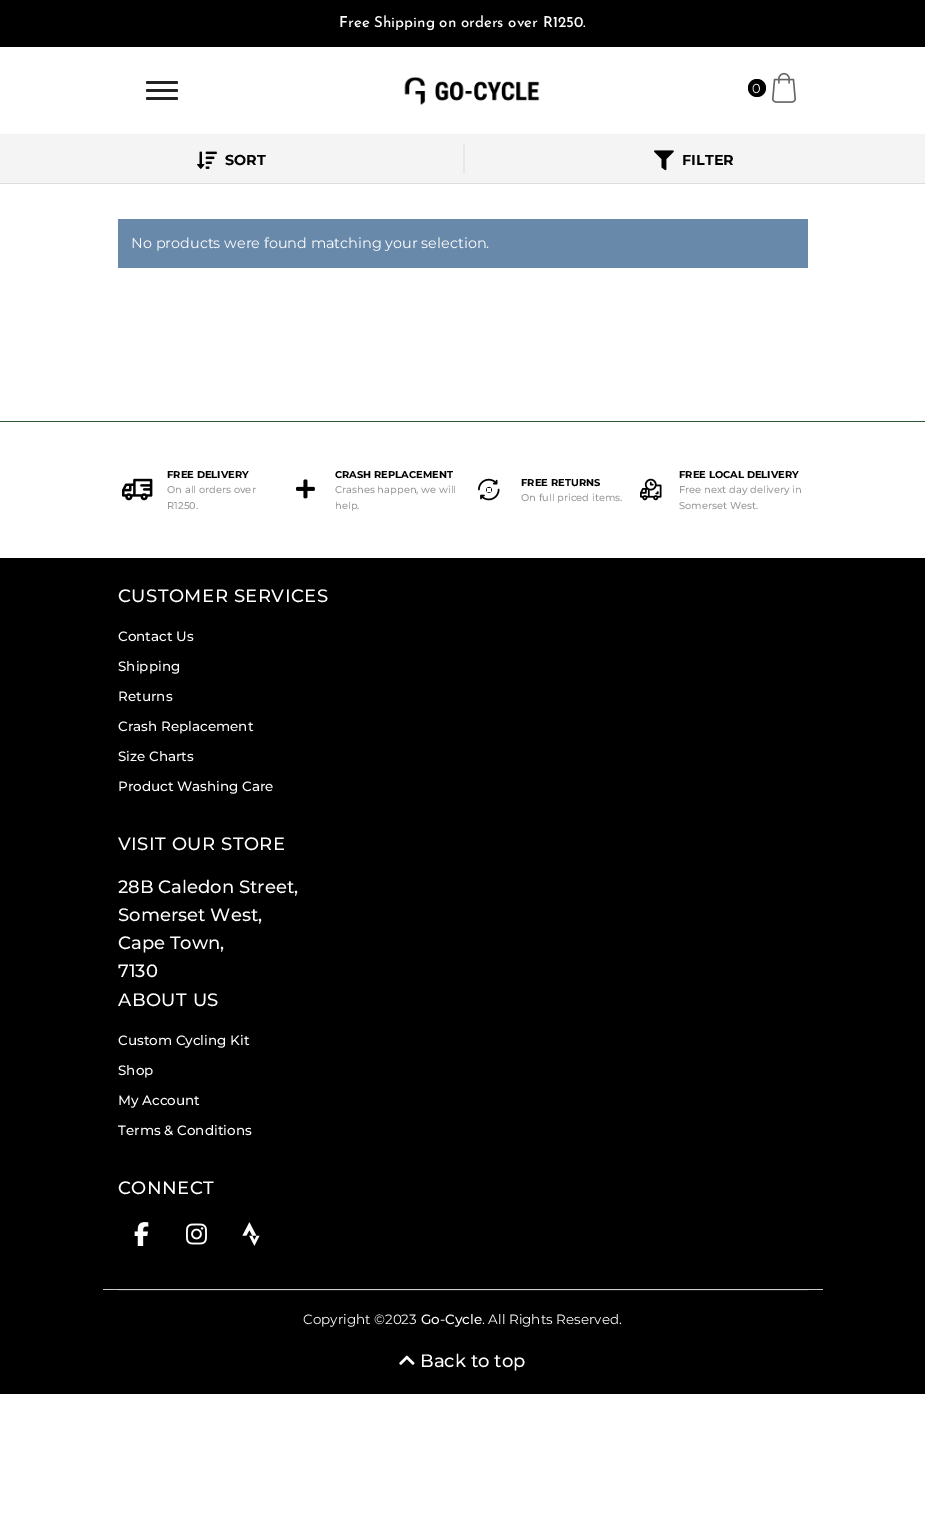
%!PS
<< /PageSize [925 1514] >> setpagedevice
/rgb { 3 { 255 div 3 1 roll } repeat setrgbcolor } def
/font { [ exch dup neg 0 0 3 -1 roll 0 0 ] selectfont } def
/text { moveto show } def
/circle { newpath 0 360 arc closepath } def
/roundrect { 5 dict begin { /r /h /w /y /x } { exch def } forall
  x r add y moveto x w add y 2 copy h add r arct x w add y h add x 1 index r arct
  x y h add x y r arct x y 2 copy exch w add exch r arct closepath end } def
/picture { 5 dict begin { /h /w /y /x /name } { exch def } forall
  gsave x y translate w h scale
  w h 8 [w 0 0 h 0 0] name (r) file false 3 colorimage grestore end } def
0 1514 translate 1 -1 scale
4 setmiterlimit
255 255 255 rgb
0 0 925 1514 rectfill
0 0 0 rgb
0 0 925 47 rectfill
34 34 34 rgb
146 81 32 3 1.5 roundrect fill
146 89 32 3 1.5 roundrect fill
146 97 32 3 1.5 roundrect fill
(img_01.rgb) 404 77 136 28 picture
0 0 0 rgb
757 88 9 circle fill
(img_02.rgb) 772 72 24 31 picture
221 221 221 rgb
0 183 925 1 rectfill
244 244 244 rgb
0 134 925 49 rectfill
(img_03.rgb) 197 151 20 18 picture
232 232 232 rgb
463 143 2 31 rectfill
(img_04.rgb) 654 150 20 21 picture
105 137 171 rgb
118 219 690 49 rectfill
0 0 0 rgb
0 558 925 836 rectfill
43 86 52 rgb
0 421 925 1 rectfill
(img_05.rgb) 122 478 31 23 picture
(img_06.rgb) 296 479 19 20 picture
(img_07.rgb) 478 478 22 23 picture
255 255 255 rgb
487 488 4 4 rectfill
(img_08.rgb) 640 478 22 23 picture
(img_09.rgb) 649 481 5 5 picture
(img_10.rgb) 655 491 4 4 picture
(img_11.rgb) 134 1222 15 24 picture
(img_12.rgb) 186 1223 21 22 picture
(img_13.rgb) 242 1222 18 24 picture
202 202 202 rgb
103 1289 720 1 rectfill
26 26 26 rgb
118 1290 690 1 rectfill
(img_14.rgb) 399 1355 16 10 picture
/JosefinSans-Thin 15 font
255 255 255 rgb
(Free Shipping on orders over R1250.) 339 27 text
/Montserrat-Regular 13 font
(0) 752 93 text
/Montserrat-Bold 14.4 font
0 0 0 rgb
(SORT) 225 165 text
(FILTER) 682 165 text
/Montserrat-Regular 14.4 font
255 255 255 rgb
(No products were found matching your selection.) 131 248 text
/Montserrat-Bold 9.9 font
0 0 0 rgb
(FREE DELIVERY) 167 478 text
/Montserrat-Medium 9.9 font
153 153 153 rgb
(On all orders over) 167 493 text
(R1250.) 167 509 text
/Montserrat-Bold 9.9 font
0 0 0 rgb
(CRASH REPLACEMENT) 335 478 text
/Montserrat-Medium 9.9 font
153 153 153 rgb
(Crashes happen, we will) 335 493 text
(help.) 335 509 text
/Montserrat-Bold 9.9 font
0 0 0 rgb
(FREE RETURNS) 521 486 text
/Montserrat-Medium 9.9 font
153 153 153 rgb
(On full priced items.) 521 501 text
/Montserrat-Bold 9.9 font
0 0 0 rgb
(FREE LOCAL DELIVERY) 679 478 text
/Montserrat-Medium 9.9 font
153 153 153 rgb
(Free next day delivery in) 679 493 text
(Somerset West.) 679 509 text
/Montserrat-Medium 18 font
255 255 255 rgb
118 602 moveto 0.5 0 (CUSTOMER SERVICES) ashow
/Montserrat-Medium 13.5 font
(Contact Us) 118 641 text
(Shipping) 118 671 text
(Returns) 118 701 text
(Crash Replacement) 118 731 text
(Size Charts) 118 761 text
(Product Washing Care) 118 791 text
/Montserrat-Medium 18 font
118 850 moveto 0.5 0 (VISIT OUR STORE) ashow
(28B Caledon Street,) 118 893 text
(Somerset West,) 118 921 text
(Cape Town,) 118 949 text
(7130) 118 977 text
118 1006 moveto 0.5 0 (ABOUT US) ashow
/Montserrat-Medium 13.5 font
(Custom Cycling Kit) 118 1045 text
(Shop) 118 1075 text
(My Account) 118 1105 text
(Terms & Conditions) 118 1135 text
/Montserrat-Medium 18 font
118 1194 moveto 0.5 0 (CONNECT) ashow
/Montserrat-Regular 13.5 font
(Copyright ©2023) 303 1324 text
/Montserrat-Medium 13.5 font
(Go-Cycle) 421 1324 text
/Montserrat-Regular 13.5 font
(. All Rights Reserved.) 482 1324 text
/Montserrat-Medium 18 font
(Back to top) 420 1367 text
showpage
